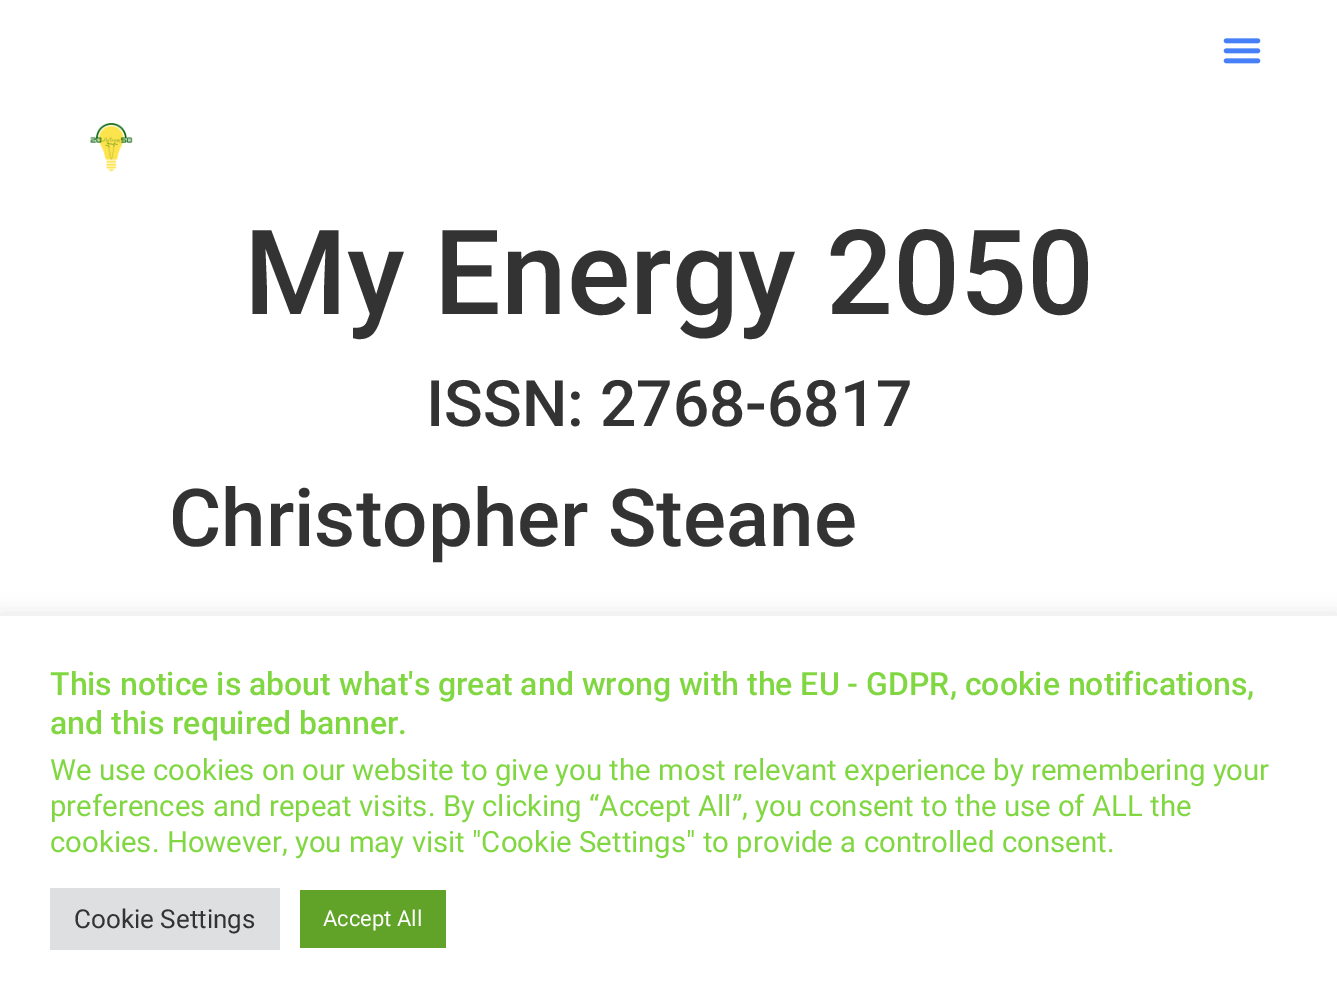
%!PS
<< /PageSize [1337 1008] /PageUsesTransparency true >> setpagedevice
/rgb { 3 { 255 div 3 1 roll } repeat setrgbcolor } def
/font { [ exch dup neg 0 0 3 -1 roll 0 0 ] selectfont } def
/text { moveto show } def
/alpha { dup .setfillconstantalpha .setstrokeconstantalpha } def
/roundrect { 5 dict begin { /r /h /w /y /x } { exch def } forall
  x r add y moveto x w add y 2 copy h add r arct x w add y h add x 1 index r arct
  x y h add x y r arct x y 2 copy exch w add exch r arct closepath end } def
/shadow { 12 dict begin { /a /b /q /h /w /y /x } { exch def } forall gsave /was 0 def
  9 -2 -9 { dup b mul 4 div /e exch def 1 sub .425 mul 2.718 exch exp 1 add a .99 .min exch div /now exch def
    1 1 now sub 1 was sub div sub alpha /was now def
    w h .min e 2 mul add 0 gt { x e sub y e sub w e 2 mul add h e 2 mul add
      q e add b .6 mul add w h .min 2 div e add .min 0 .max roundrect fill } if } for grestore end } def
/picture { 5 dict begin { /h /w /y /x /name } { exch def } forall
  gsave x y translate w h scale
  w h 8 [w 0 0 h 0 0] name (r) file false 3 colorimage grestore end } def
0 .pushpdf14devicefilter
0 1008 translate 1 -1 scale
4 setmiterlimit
255 255 255 rgb
0 0 1337 1008 rectfill
(img_01.rgb) 1223 38 38 26 picture
(img_02.rgb) 90 123 43 49 picture
172 171 171 rgb
0 614 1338 392 0 10 0.3 shadow
255 255 255 rgb
0 616 1337 392 rectfill
222 223 224 rgb
50 888 230 62 rectfill
97 162 41 rgb
300 890 146 58 rectfill
/Roboto-Medium 118 font
51 51 51 rgb
(My Energy 2050) 244 314 text
/Roboto-Medium 64 font
(ISSN: 2768-6817) 426 426 text
/Roboto-Medium 80 font
(Christopher Steane) 169 546 text
/Roboto-Medium 32 font
129 215 66 rgb
(This notice is about what's great and wrong with the EU - GDPR, cookie notifications,) 50 695 text
(and this required banner.) 50 734 text
/Roboto-Regular 29.35 font
(We use cookies on our website to give you the most relevant experience by remembering your) 50 780 text
(preferences and repeat visits. By clicking “Accept All”, you consent to the use of ALL the) 50 816 text
(cookies. However, you may visit "Cookie Settings" to provide a controlled consent.) 50 852 text
/Roboto-Regular 26 font
51 51 51 rgb
(Cookie Settings) 74 928 text
/Roboto-Regular 22 font
255 255 255 rgb
(Accept All) 323 926 text
.poppdf14devicefilter showpage
